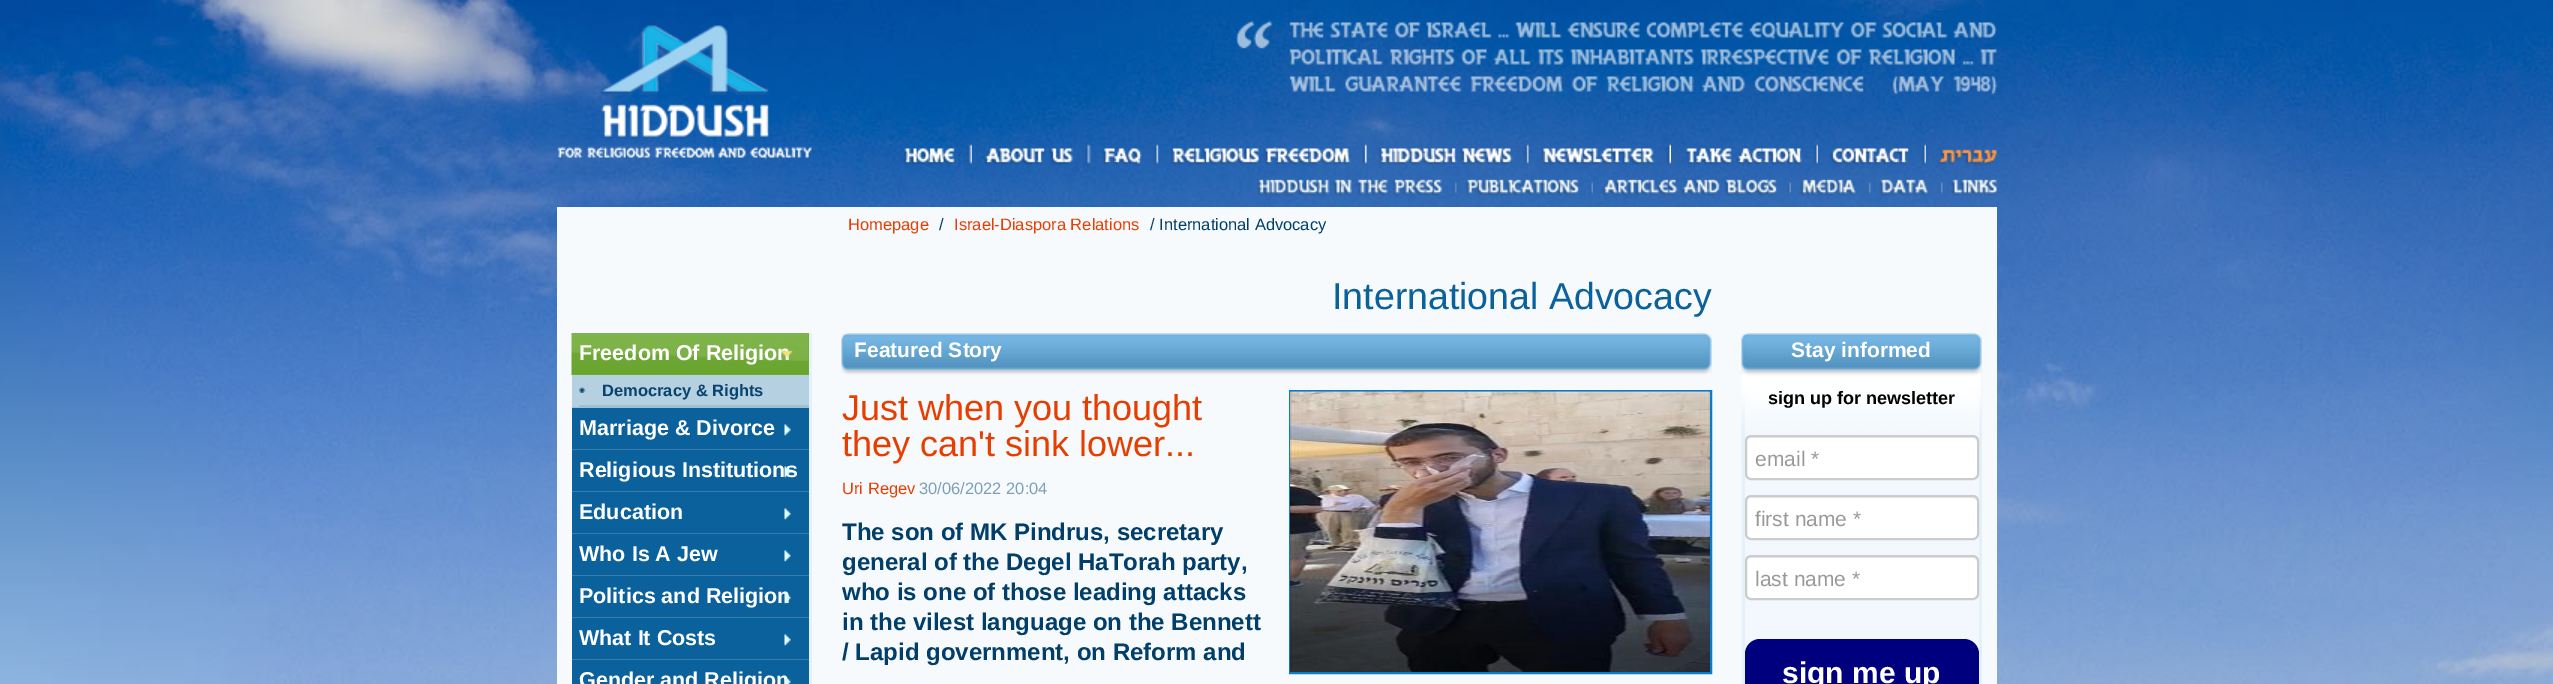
%!PS
<< /PageSize [2553 684] /PageUsesTransparency true >> setpagedevice
/rgb { 3 { 255 div 3 1 roll } repeat setrgbcolor } def
/font { [ exch dup neg 0 0 3 -1 roll 0 0 ] selectfont } def
/text { moveto show } def
/alpha { dup .setfillconstantalpha .setstrokeconstantalpha } def
/roundrect { 5 dict begin { /r /h /w /y /x } { exch def } forall
  x r add y moveto x w add y 2 copy h add r arct x w add y h add x 1 index r arct
  x y h add x y r arct x y 2 copy exch w add exch r arct closepath end } def
/picture { 5 dict begin { /h /w /y /x /name } { exch def } forall
  gsave x y translate w h scale
  w h 8 [w 0 0 h 0 0] name (r) file false 3 colorimage grestore end } def
0 .pushpdf14devicefilter
0 684 translate 1 -1 scale
4 setmiterlimit
255 255 255 rgb
0 0 2553 684 rectfill
(img_01.rgb) 0 0 2553 684 picture
(img_02.rgb) 557 25 255 135 picture
(img_03.rgb) 1236 20 761 75 picture
(img_04.rgb) 903 143 69 22 picture
(img_05.rgb) 984 144 107 21 picture
(img_06.rgb) 1102 144 57 22 picture
(img_07.rgb) 1170 143 197 23 picture
(img_08.rgb) 1378 144 151 21 picture
(img_09.rgb) 1541 143 130 22 picture
(img_10.rgb) 1684 143 134 22 picture
(img_11.rgb) 1830 143 96 22 picture
(img_12.rgb) 1938 149 59 17 picture
(img_13.rgb) 1257 179 200 17 picture
(img_14.rgb) 1465 179 128 17 picture
(img_15.rgb) 1602 178 189 18 picture
(img_16.rgb) 1800 179 71 17 picture
(img_17.rgb) 1879 179 62 17 picture
(img_18.rgb) 1941 179 56 17 picture
247 250 253 rgb
557 207 1440 477 rectfill
229 241 250 rgb
809 333 3 351 rectfill
110 172 44 rgb
808 333 1 41 rectfill
(img_19.rgb) 571 333 238 42 picture
572 374 237 1 rectfill
181 208 225 rgb
572 375 7 32 rectfill
157 192 215 rgb
572 407 237 1 rectfill
181 208 225 rgb
579 375 230 30 rectfill
(img_21.rgb) 579 387 7 6 picture
157 192 215 rgb
579 405 230 2 rectfill
11 97 156 rgb
572 408 237 41 rectfill
55 126 174 rgb
572 449 237 1 rectfill
(img_22.rgb) 784 424 7 12 picture
11 97 156 rgb
572 450 237 41 rectfill
55 126 174 rgb
572 491 237 1 rectfill
11 97 156 rgb
572 492 237 41 rectfill
55 126 174 rgb
572 533 237 1 rectfill
(img_22.rgb) 784 508 7 12 picture
11 97 156 rgb
572 534 237 41 rectfill
55 126 174 rgb
572 575 237 1 rectfill
(img_22.rgb) 784 550 7 12 picture
11 97 156 rgb
572 576 237 41 rectfill
55 126 174 rgb
572 617 237 1 rectfill
11 97 156 rgb
572 618 237 41 rectfill
55 126 174 rgb
572 659 237 1 rectfill
(img_22.rgb) 784 634 7 12 picture
11 97 156 rgb
572 660 237 24 rectfill
229 241 250 rgb
1711 333 1 42 rectfill
(img_26.rgb) 841 333 871 42 picture
7 124 208 rgb
2 setlinewidth
1290 391 421 282 rectstroke
(img_27.rgb) 1290 391 420 281 picture
229 241 250 rgb
1742 333 240 351 rectfill
(img_28.rgb) 1741 333 241 135 picture
0.5 alpha
255 255 255 rgb
1745 387 234 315 18 roundrect fill
1 alpha
1745 435 234 45 6 roundrect fill
236 236 236 rgb
1750 438 moveto 222 0 rlineto 3 0 5 2 5 4 rcurveto 0 -3 -2 -5 -5 -5 rcurveto -221 0 rlineto -3 0 -5 2 -5 5 rcurveto 0 -2 2 -4 4 -4 rcurveto closepath fill
204 204 204 rgb
1746 436 232 43 5 roundrect stroke
255 255 255 rgb
1745 495 234 45 6 roundrect fill
236 236 236 rgb
1750 498 moveto 222 0 rlineto 3 0 5 2 5 4 rcurveto 0 -3 -2 -5 -5 -5 rcurveto -221 0 rlineto -3 0 -5 2 -5 5 rcurveto 0 -2 2 -4 4 -4 rcurveto closepath fill
204 204 204 rgb
1746 496 232 43 5 roundrect stroke
255 255 255 rgb
1745 555 234 45 6 roundrect fill
236 236 236 rgb
1750 558 moveto 222 0 rlineto 3 0 5 2 5 4 rcurveto 0 -3 -2 -5 -5 -5 rcurveto -221 0 rlineto -3 0 -5 2 -5 5 rcurveto 0 -2 2 -4 4 -4 rcurveto closepath fill
204 204 204 rgb
1746 556 232 43 5 roundrect stroke
0 0 127 rgb
1745 639 234 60 15 roundrect fill
/LiberationSans-Regular 16.5 font
230 62 0 rgb
(Homepage) 848 230 text
1 62 105 rgb
(/) 939 230 text
230 62 0 rgb
(Israel-Diaspora Relations) 954 230 text
1 62 105 rgb
(/ International Advocacy) 1150 230 text
/LiberationSans-Regular 37.5 font
11 97 156 rgb
(International Advocacy) 1332 309 text
/LiberationSans-Bold 21.5 font
255 255 255 rgb
(Freedom Of Religion) 579 360 text
(img_20.rgb) 781 350 12 8 picture
/LiberationSans-Bold 16.5 font
7 67 109 rgb
(Democracy & Rights) 602 396 text
/LiberationSans-Bold 21.5 font
255 255 255 rgb
(Marriage & Divorce) 579 435 text
(Religious Institutions) 579 477 text
(img_23.rgb) 784 466 7 12 picture
(Education) 579 519 text
(Who Is A Jew) 579 561 text
(Politics and Religion) 579 603 text
(img_24.rgb) 784 592 7 12 picture
(What It Costs) 579 645 text
(Gender and Religion) 579 687 text
(img_25.rgb) 784 676 7 8 picture
/LiberationSans-Bold 21 font
(Featured Story) 854 357 text
/LiberationSans-Regular 36 font
230 62 0 rgb
(Just when you thought) 842 420 text
(they can't sink lower...) 842 456 text
/LiberationSans-Regular 16.5 font
(Uri Regev) 842 494 text
124 160 185 rgb
(30/06/2022 20:04) 919 494 text
/LiberationSans-Bold 24 font
1 62 105 rgb
(The son of MK Pindrus, secretary) 842 540 text
(general of the Degel HaTorah party,) 842 570 text
(who is one of those leading attacks) 842 600 text
(in the vilest language on the Bennett) 842 630 text
(/ Lapid government, on Reform and) 842 660 text
/LiberationSans-Bold 21 font
255 255 255 rgb
(Stay informed) 1791 357 text
/LiberationSans-Bold 18 font
0 0 0 rgb
(sign up for newsletter) 1768 404 text
/LiberationSans-Regular 21 font
153 153 153 rgb
(email *) 1755 466 text
(first name *) 1755 526 text
(last name *) 1755 586 text
/LiberationSans-Bold 30 font
255 255 255 rgb
(sign me up) 1782 683 text
.poppdf14devicefilter showpage
